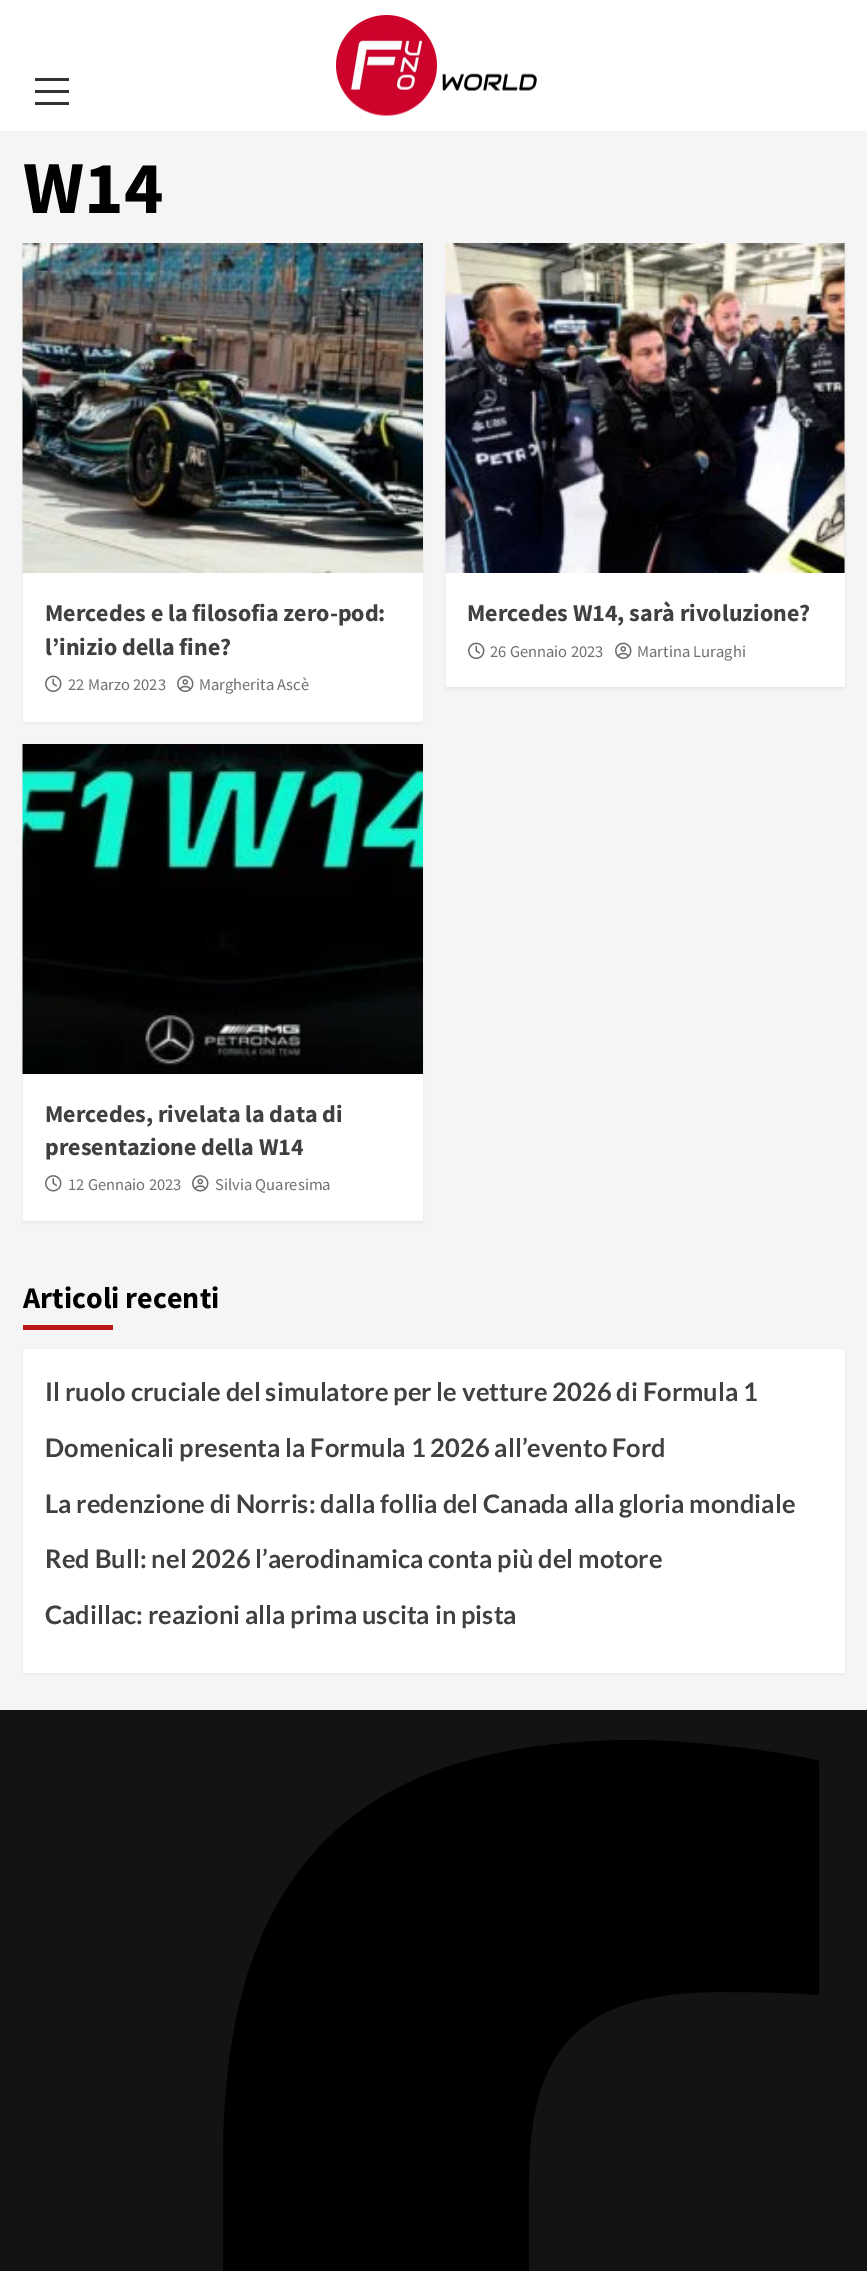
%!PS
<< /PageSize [867 2271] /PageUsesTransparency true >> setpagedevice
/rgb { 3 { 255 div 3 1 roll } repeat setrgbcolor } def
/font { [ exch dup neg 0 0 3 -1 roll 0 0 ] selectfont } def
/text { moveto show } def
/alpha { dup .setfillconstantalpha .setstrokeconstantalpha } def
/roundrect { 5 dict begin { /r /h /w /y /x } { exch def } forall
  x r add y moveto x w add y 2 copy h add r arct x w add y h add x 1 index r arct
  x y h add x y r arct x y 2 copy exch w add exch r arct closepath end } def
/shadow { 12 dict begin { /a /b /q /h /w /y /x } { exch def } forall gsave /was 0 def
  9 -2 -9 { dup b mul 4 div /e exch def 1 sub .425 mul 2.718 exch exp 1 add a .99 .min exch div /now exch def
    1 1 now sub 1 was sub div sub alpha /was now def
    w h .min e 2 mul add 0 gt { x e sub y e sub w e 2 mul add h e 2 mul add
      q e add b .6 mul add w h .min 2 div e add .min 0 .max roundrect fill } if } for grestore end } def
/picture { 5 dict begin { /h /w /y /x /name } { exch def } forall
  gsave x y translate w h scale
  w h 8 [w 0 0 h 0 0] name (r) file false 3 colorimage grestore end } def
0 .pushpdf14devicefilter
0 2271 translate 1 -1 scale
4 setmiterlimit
245 245 245 rgb
0 0 867 2271 rectfill
255 255 255 rgb
0 0 867 131 rectfill
(img_01.rgb) 336 15 201 101 picture
51 51 51 rgb
35 90 34 3 rectfill
35 78 34 3 rectfill
35 102 34 3 rectfill
0 0 0 rgb
23 245 400 478 0 1.5 0.05 shadow
255 255 255 rgb
23 573 400 149 rectfill
(img_02.rgb) 22 243 401 330 picture
(img_03.rgb) 45 675 17 17 picture
(img_04.rgb) 177 675 17 17 picture
0 0 0 rgb
446 245 399 444 0 1.5 0.05 shadow
255 255 255 rgb
446 573 399 114 rectfill
216 216 216 rgb
844 243 1 330 rectfill
(img_05.rgb) 445 243 400 330 picture
(img_03.rgb) 468 642 17 17 picture
(img_04.rgb) 615 642 17 17 picture
0 0 0 rgb
23 746 400 477 0 1.5 0.05 shadow
255 255 255 rgb
23 1074 400 147 rectfill
(img_06.rgb) 22 744 401 330 picture
(img_07.rgb) 45 1175 17 17 picture
(img_08.rgb) 192 1175 17 17 picture
187 25 25 rgb
23 1325 90 5 rectfill
0 0 0 rgb
23 1350 822 324 0 1.5 0.05 shadow
255 255 255 rgb
23 1349 822 324 rectfill
18 19 20 rgb
0 1710 867 561 rectfill
0 0 0 rgb
223 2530 moveto 0 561 rlineto 306 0 rlineto 0 -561 rlineto 229 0 rlineto 47 -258 rlineto -276 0 rlineto 0 -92 rlineto 0 -136 54 -188 192 -188 rcurveto 43 0 78 1 98 3 rcurveto 0 -234 rlineto -38 -10 -130 -21 -184 -21 rcurveto -282 0 -412 133 -412 421 rcurveto 0 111 rlineto -174 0 rlineto 0 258 rlineto closepath fill
/SourceSansPro-Bold 75 font
(W14) 23 213 text
/SourceSansPro-Bold 24 font
64 64 64 rgb
(Mercedes e la filosofia zero-pod:) 45 621 text
(l’inizio della fine?) 45 655 text
/SourceSansPro-Regular 16.5 font
112 112 112 rgb
(22 Marzo 2023) 68 690 text
(Margherita Ascè) 199 690 text
/SourceSansPro-Bold 24 font
64 64 64 rgb
(Mercedes W14, sarà rivoluzione?) 467 621 text
/SourceSansPro-Regular 16.5 font
112 112 112 rgb
(26 Gennaio 2023) 490 657 text
(Martina Luraghi) 637 657 text
/SourceSansPro-Bold 24 font
64 64 64 rgb
(Mercedes, rivelata la data di) 45 1122 text
(presentazione della W14) 45 1155 text
/SourceSansPro-Regular 16.5 font
112 112 112 rgb
(12 Gennaio 2023) 68 1190 text
(Silvia Quaresima) 215 1190 text
/SourceSansPro-Bold 30 font
0 0 0 rgb
(Articoli recenti) 23 1308 text
/Lato-Bold 25.5 font
64 64 64 rgb
(Il ruolo cruciale del simulatore per le vetture 2026 di Formula 1) 45 1401 text
(Domenicali presenta la Formula 1 2026 all’evento Ford) 45 1457 text
(La redenzione di Norris: dalla follia del Canada alla gloria mondiale) 45 1513 text
(Red Bull: nel 2026 l’aerodinamica conta più del motore) 45 1568 text
(Cadillac: reazioni alla prima uscita in pista) 45 1624 text
.poppdf14devicefilter showpage
